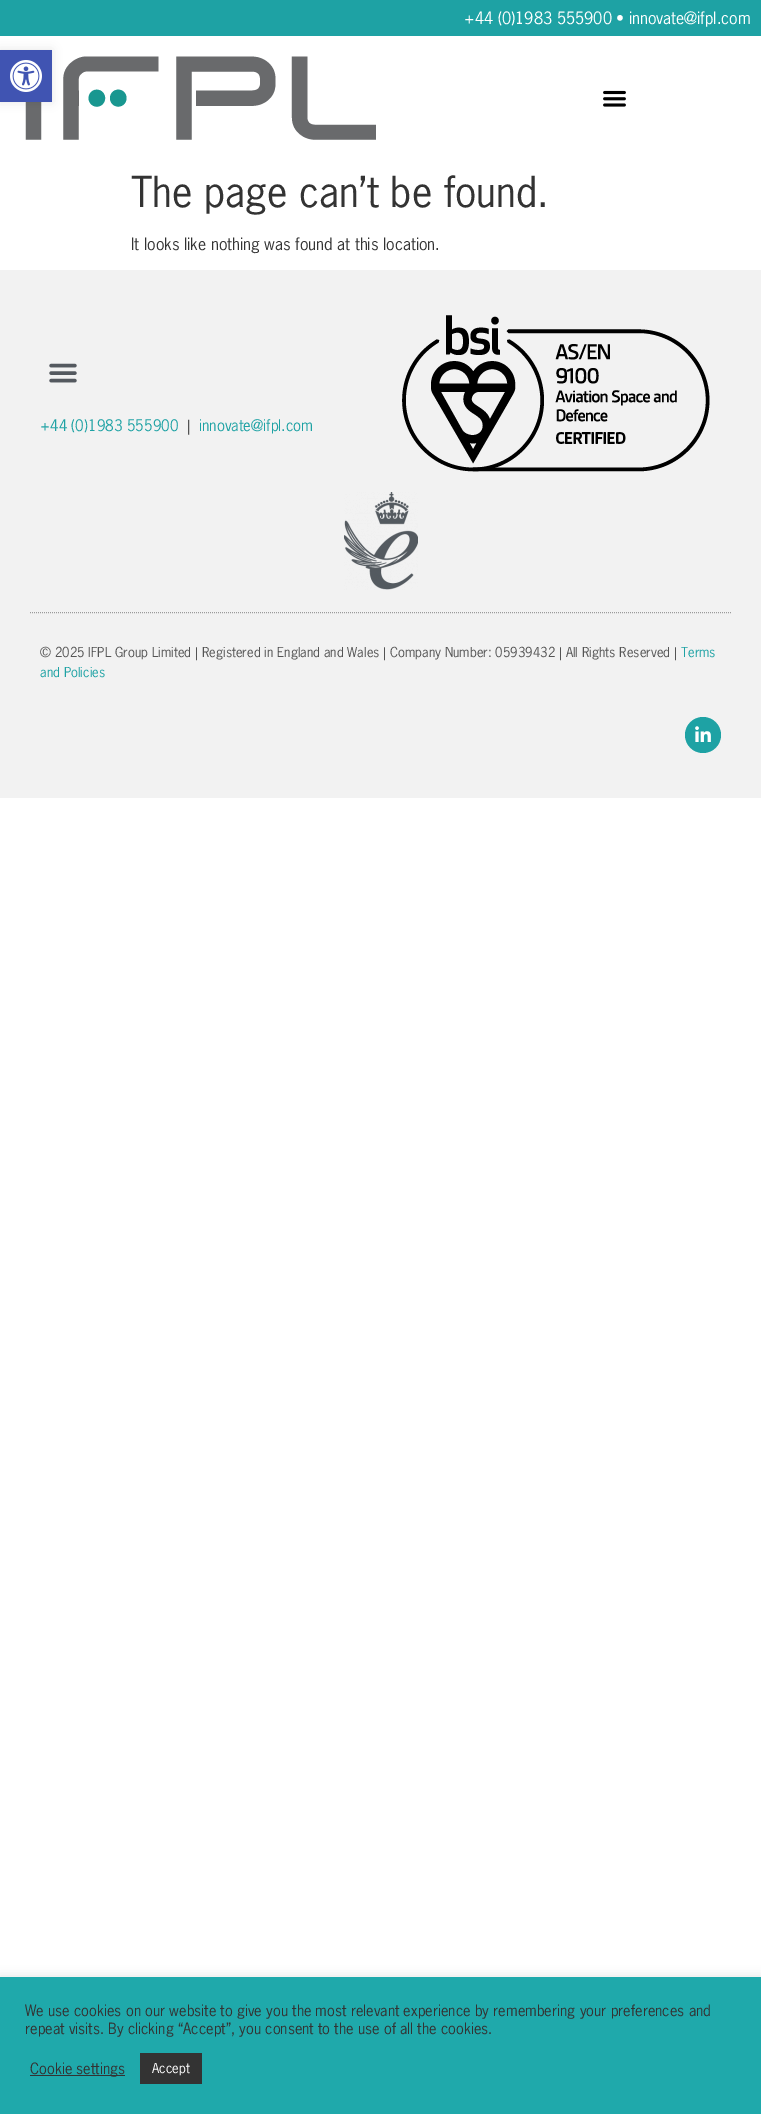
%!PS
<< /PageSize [761 2114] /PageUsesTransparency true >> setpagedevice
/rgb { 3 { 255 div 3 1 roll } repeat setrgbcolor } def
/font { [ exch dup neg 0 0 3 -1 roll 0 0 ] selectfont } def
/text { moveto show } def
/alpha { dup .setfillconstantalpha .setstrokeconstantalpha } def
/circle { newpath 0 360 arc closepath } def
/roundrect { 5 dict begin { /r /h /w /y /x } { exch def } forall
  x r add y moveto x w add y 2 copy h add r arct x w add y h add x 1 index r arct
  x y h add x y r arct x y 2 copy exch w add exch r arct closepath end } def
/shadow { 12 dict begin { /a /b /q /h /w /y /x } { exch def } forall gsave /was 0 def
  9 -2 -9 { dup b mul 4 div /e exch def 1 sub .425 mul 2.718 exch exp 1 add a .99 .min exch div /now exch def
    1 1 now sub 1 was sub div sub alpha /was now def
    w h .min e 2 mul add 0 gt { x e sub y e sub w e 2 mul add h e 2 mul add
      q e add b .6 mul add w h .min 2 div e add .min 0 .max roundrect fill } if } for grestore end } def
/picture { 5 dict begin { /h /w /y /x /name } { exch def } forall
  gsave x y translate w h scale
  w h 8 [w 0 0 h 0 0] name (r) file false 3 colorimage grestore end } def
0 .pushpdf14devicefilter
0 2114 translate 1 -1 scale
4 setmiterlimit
255 255 255 rgb
0 0 761 2114 rectfill
30 162 164 rgb
0 0 761 36 rectfill
(img_01.rgb) 25 56 351 84 picture
(img_02.rgb) 603 90 23 17 picture
0 0 0 rgb
0 50 52 52 0 5 0.1 shadow
64 84 178 rgb
0 50 52 52 rectfill
(img_03.rgb) 10 60 32 32 picture
242 242 242 rgb
0 270 761 528 rectfill
155 155 155 rgb
[1 1] 0 setdash
30 612.5 moveto 701 0 rlineto stroke
(img_04.rgb) 49 363 28 20 picture
(img_05.rgb) 402 315 308 157 picture
(img_06.rgb) 344 492 74 98 picture
30 162 164 rgb
703 735 18 circle fill
(img_07.rgb) 695 726 16 16 picture
172 171 171 rgb
0 1976 761 137 0 5 0.3 shadow
31 169 171 rgb
0 1977 761 137 rectfill
51 51 51 rgb
30 2075 95 1 rectfill
140 2053 62 31 rectfill
/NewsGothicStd-Regular 16 font
255 255 255 rgb
(+44 \(0\)1983 555900) 464 24 text
(• innovate@ifpl.com) 616 24 text
/NewsGothicStd-Regular 40 font
51 51 51 rgb
(The page can’t be found.) 131 207 text
/NewsGothicStd-Regular 16 font
(It looks like nothing was found at this location.) 131 250 text
/NewsGothicStd-Regular 15 font
30 162 164 rgb
(+44 \(0\)1983 555900) 40 431 text
84 84 84 rgb
(|) 187 431 text
30 162 164 rgb
(innovate@ifpl.com) 199 431 text
/NewsGothicStd-Regular 13 font
84 84 84 rgb
(© 2025 IFPL Group Limited | Registered in England and Wales | Company Number: 05939432 | All Rights Reserved |) 40 657 text
30 162 164 rgb
(Terms) 681 657 text
(and Policies) 40 677 text
/NewsGothicStd-Regular 14.65 font
51 51 51 rgb
(We use cookies on our website to give you the most relevant experience by remembering your preferences and) 25 2016 text
(repeat visits. By clicking “Accept”, you consent to the use of all the cookies.) 25 2034 text
(Cookie settings) 30 2074 text
/NewsGothicStd-Regular 13 font
255 255 255 rgb
(Accept) 152 2073 text
.poppdf14devicefilter showpage
